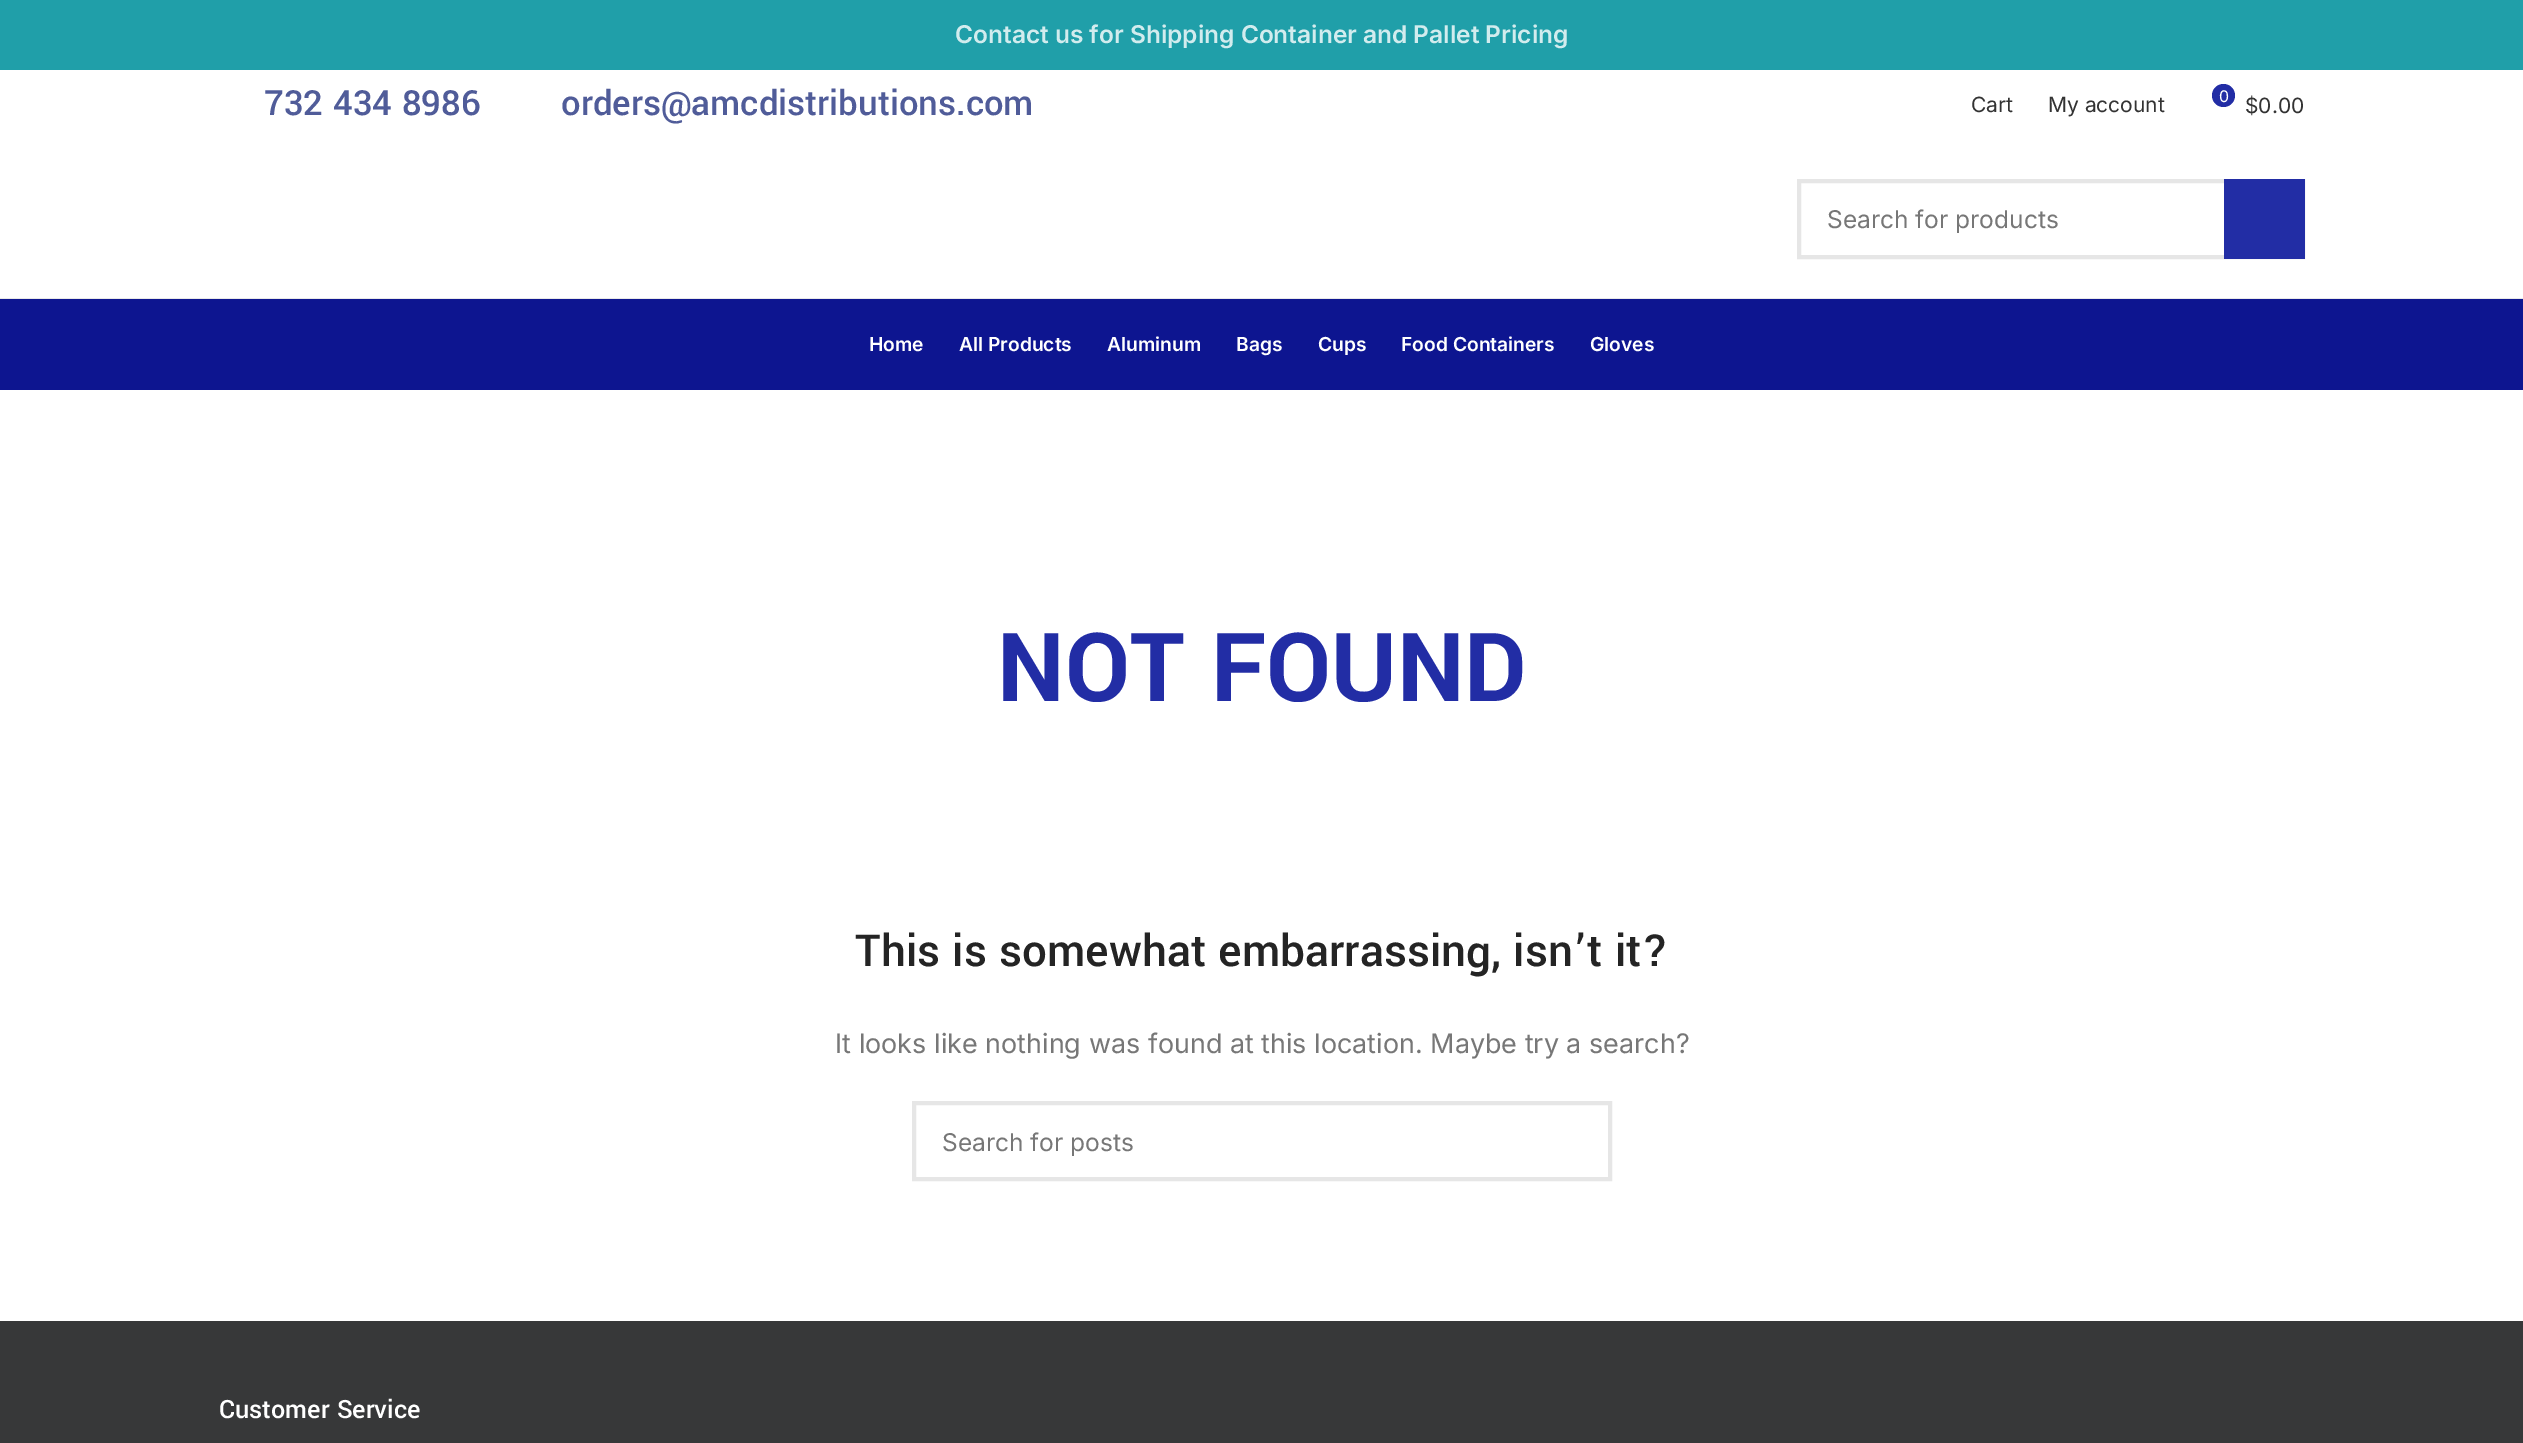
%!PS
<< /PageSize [2523 1443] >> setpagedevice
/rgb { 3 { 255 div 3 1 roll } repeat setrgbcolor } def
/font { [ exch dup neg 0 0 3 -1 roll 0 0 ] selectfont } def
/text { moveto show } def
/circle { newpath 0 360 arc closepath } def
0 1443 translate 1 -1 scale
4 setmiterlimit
255 255 255 rgb
0 0 2523 1443 rectfill
32 159 169 rgb
0 0 2523 70 rectfill
34 45 165 rgb
2223.5 95.5 11.5 circle fill
232 232 232 rgb
0 298 2523 1 rectfill
230 230 230 rgb
4 setlinewidth
1799 181 504 76 rectstroke
34 45 165 rgb
2224 179 81 80 rectfill
13 21 144 rgb
0 299 2523 91 rectfill
230 230 230 rgb
914 1103 696 76 rectstroke
55 56 57 rgb
0 1321 2523 122 rectfill
/Inter-SemiBold 24.5 font
210 236 238 rgb
(Contact us for Shipping Container and Pallet Pricing) 955 43 text
/Yantramanav-Medium 38.5 font
80 92 153 rgb
(732 434 8986) 264 115 text
(orders@amcdistributions.com) 561 115 text
/Inter-Regular 21 font
51 51 51 rgb
(Cart) 1971 112 text
(My account) 2048 112 text
/Inter-Regular 16 font
255 255 255 rgb
(0) 2219 102 text
/Inter-Regular 21 font
51 51 51 rgb
($0.00) 2245 113 text
/Inter-Regular 24.5 font
119 119 119 rgb
(Search for products) 1827 228 text
/Inter-SemiBold 19.25 font
255 255 255 rgb
(Home) 869 351 text
(All Products) 959 351 text
(Aluminum) 1107 351 text
(Bags) 1236 351 text
(Cups) 1318 351 text
(Food Containers) 1401 351 text
(Gloves) 1590 351 text
/Yantramanav-Bold 106 font
34 45 165 rgb
(NOT FOUND) 997 701 text
/Yantramanav-Medium 49 font
36 36 36 rgb
(This is somewhat embarrassing, isn’t it?) 855 966 text
/Inter-Regular 26.95 font
119 119 119 rgb
(It looks like nothing was found at this location. Maybe try a search?) 835 1053 text
/Inter-Regular 24.5 font
(Search for posts) 942 1151 text
/Yantramanav-Medium 28 font
255 255 255 rgb
(Customer Service) 219 1418 text
showpage
